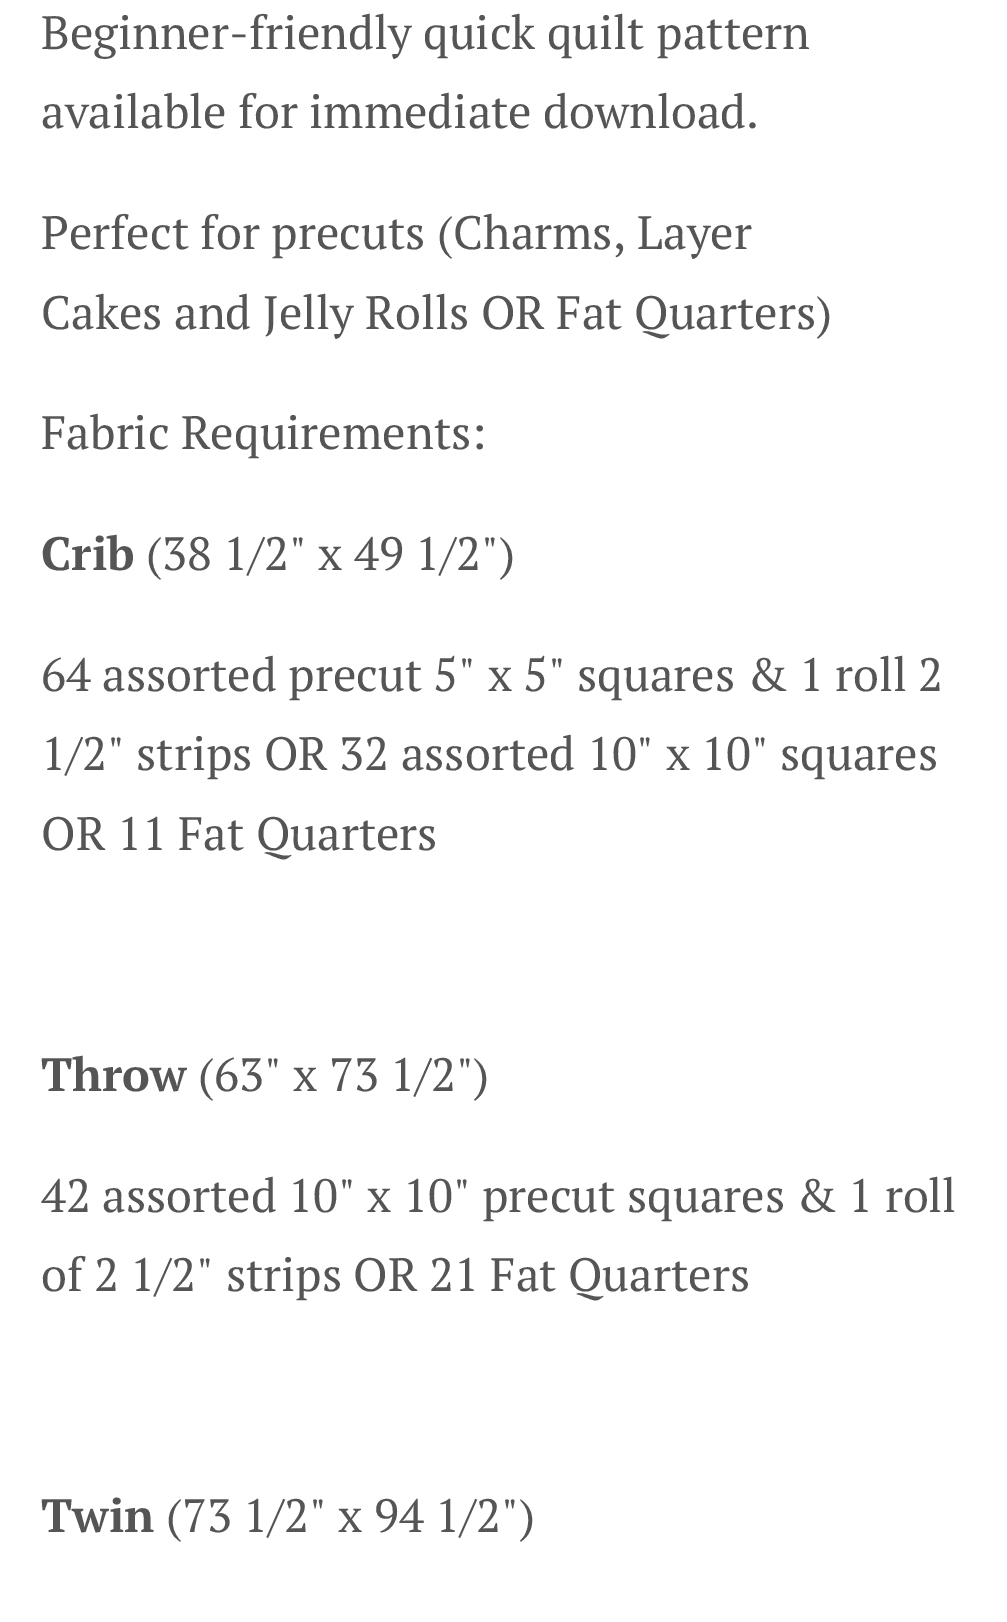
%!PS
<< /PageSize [1007 1622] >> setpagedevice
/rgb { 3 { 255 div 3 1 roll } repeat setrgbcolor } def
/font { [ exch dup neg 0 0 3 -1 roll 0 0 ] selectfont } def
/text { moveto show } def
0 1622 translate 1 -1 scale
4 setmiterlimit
255 255 255 rgb
0 0 1007 1622 rectfill
/PTSerif-Regular 46.75 font
85 85 85 rgb
(Beginner-friendly quick quilt pattern) 41 49 text
(available for immediate download.) 41 128 text
(Perfect for precuts \(Charms, Layer) 41 249 text
(Cakes and Jelly Rolls OR Fat Quarters\)) 41 329 text
(Fabric Requirements:) 41 449 text
/PTSerif-Bold 46.75 font
(Crib) 41 570 text
/PTSerif-Regular 46.75 font
(\(38 1/2" x 49 1/2"\)) 146 570 text
(64 assorted precut 5" x 5" squares & 1 roll 2) 41 691 text
(1/2" strips OR 32 assorted 10" x 10" squares) 41 770 text
(OR 11 Fat Quarters) 41 850 text
/PTSerif-Bold 46.75 font
(Throw) 41 1091 text
/PTSerif-Regular 46.75 font
(\(63" x 73 1/2"\)) 198 1091 text
(42 assorted 10" x 10" precut squares & 1 roll) 41 1212 text
(of 2 1/2" strips OR 21 Fat Quarters) 41 1291 text
/PTSerif-Bold 46.75 font
(Twin) 41 1532 text
/PTSerif-Regular 46.75 font
(\(73 1/2" x 94 1/2"\)) 166 1532 text
showpage
